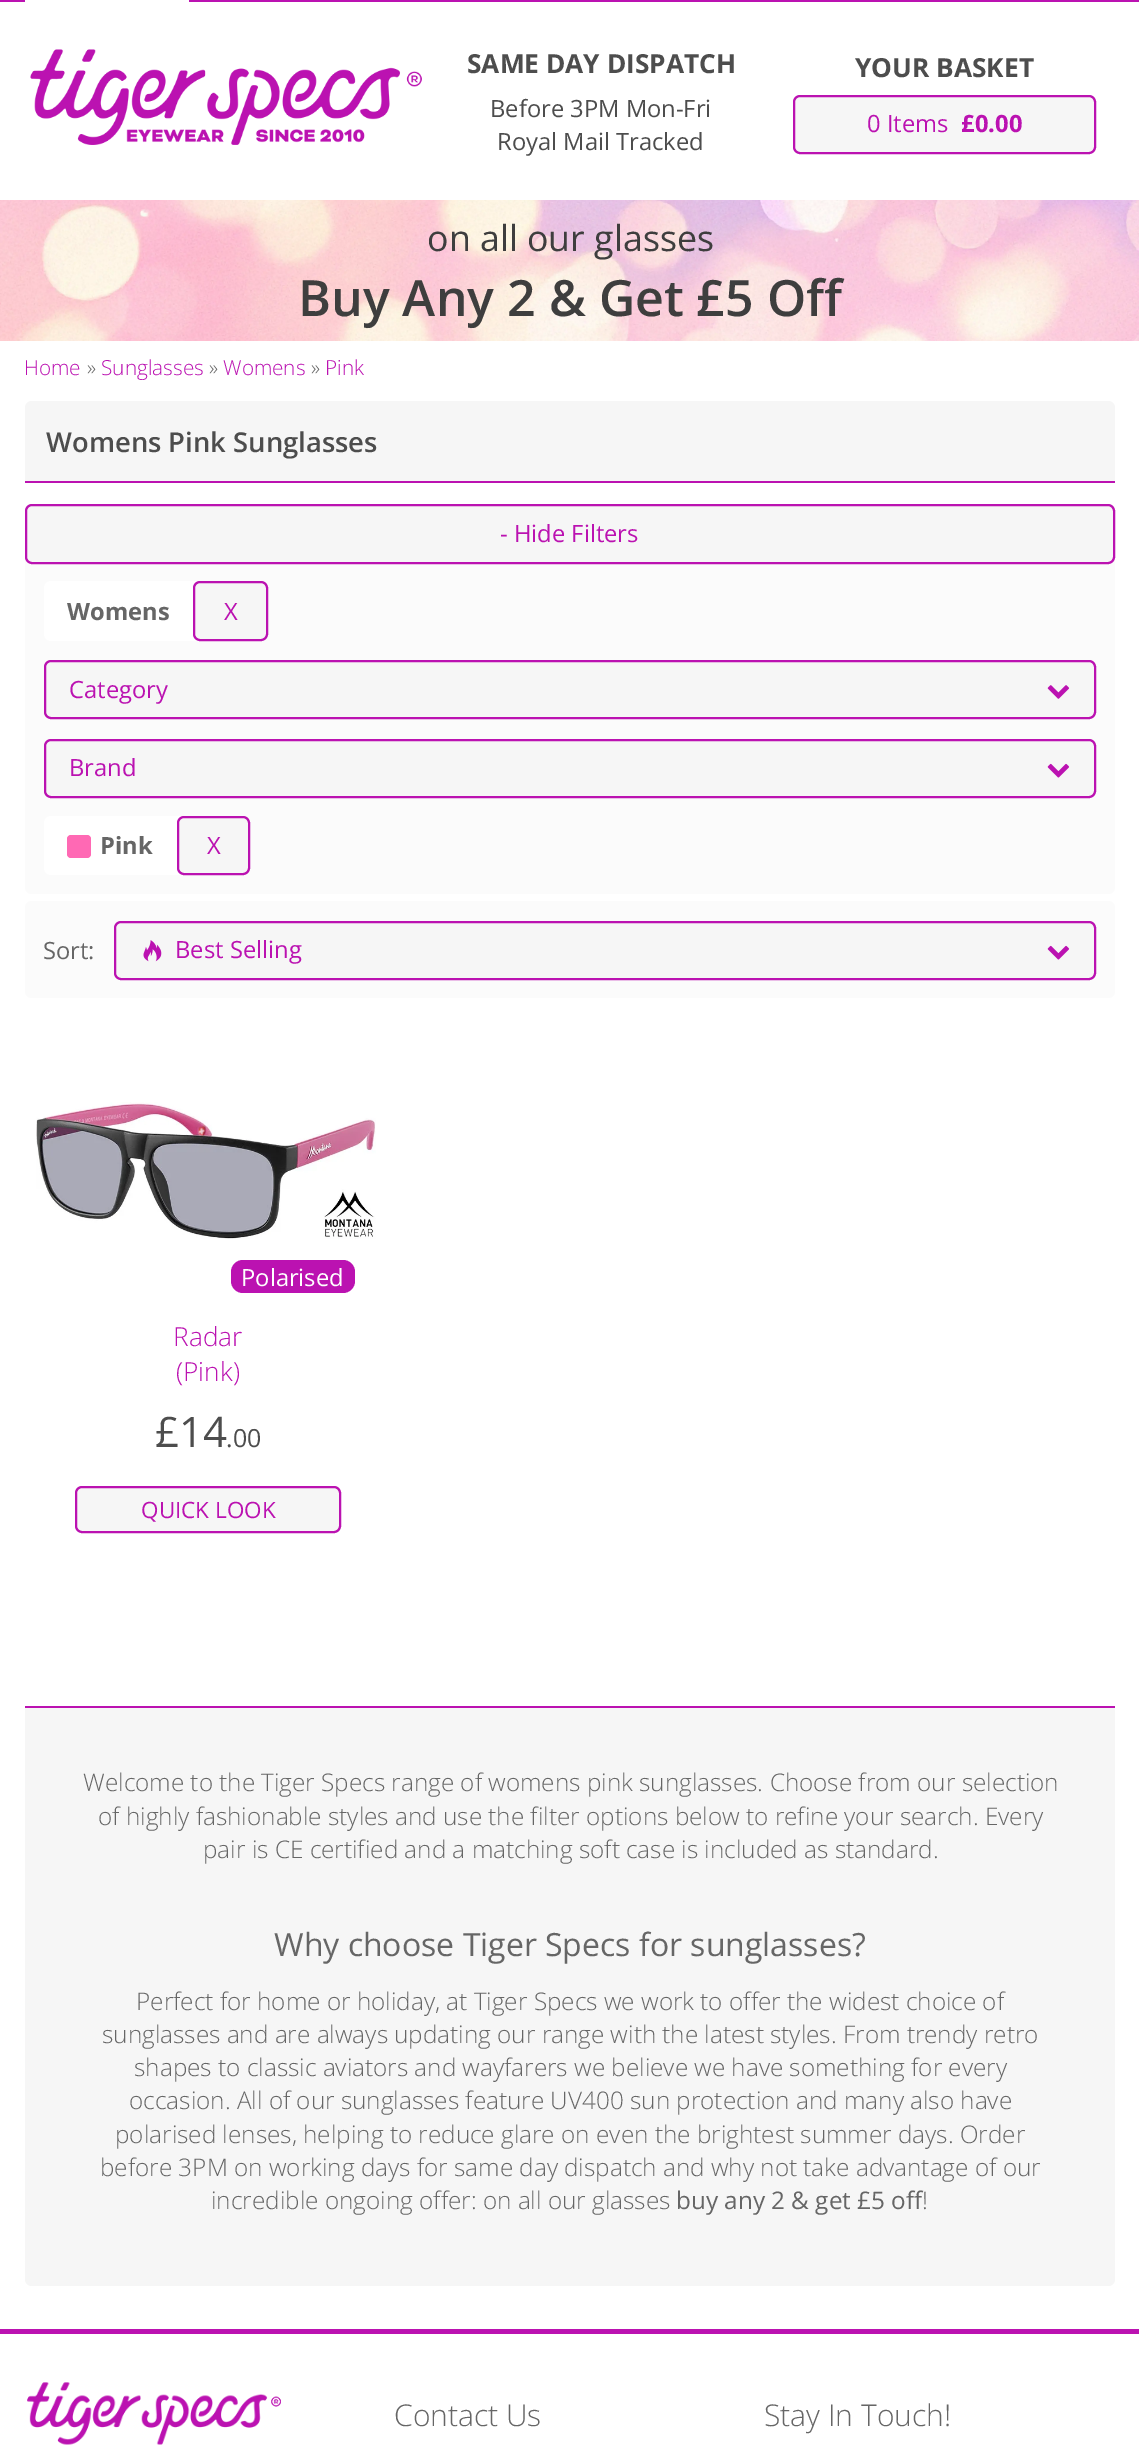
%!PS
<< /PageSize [1139 2446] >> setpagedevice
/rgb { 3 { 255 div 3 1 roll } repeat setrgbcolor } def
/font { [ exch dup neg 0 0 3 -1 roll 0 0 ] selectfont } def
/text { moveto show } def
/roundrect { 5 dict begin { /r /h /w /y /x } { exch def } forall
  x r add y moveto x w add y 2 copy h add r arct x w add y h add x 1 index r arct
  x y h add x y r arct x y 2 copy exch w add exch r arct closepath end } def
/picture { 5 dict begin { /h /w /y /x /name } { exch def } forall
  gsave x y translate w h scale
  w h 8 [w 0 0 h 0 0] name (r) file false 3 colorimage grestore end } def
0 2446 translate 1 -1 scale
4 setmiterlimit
255 255 255 rgb
0 0 1139 2446 rectfill
187 18 177 rgb
0 0 1139 2 rectfill
255 255 255 rgb
25 0 164 2 rectfill
(img_01.rgb) 30 49 392 96 picture
246 246 246 rgb
794 96 301 57 6 roundrect gsave fill grestore
187 18 177 rgb
2 setlinewidth
stroke
(img_02.rgb) 0 200 1139 141 picture
246 246 246 rgb
32 401 moveto 1076 0 rlineto 4 0 7 3 7 7 rcurveto 0 75 rlineto -1090 0 rlineto 0 -75 rlineto 0 -4 3 -7 7 -7 rcurveto closepath fill
187 18 177 rgb
25 481 1090 2 rectfill
251 251 251 rgb
25 557 moveto 1090 0 rlineto 0 330 rlineto 0 4 -3 7 -7 7 rcurveto -1076 0 rlineto -4 0 -7 -3 -7 -7 rcurveto closepath fill
246 246 246 rgb
26 505 1088 58 6 roundrect gsave fill grestore
187 18 177 rgb
stroke
255 255 255 rgb
44 581 224 60 7 roundrect fill
246 246 246 rgb
194 582 73 58 6 roundrect gsave fill grestore
187 18 177 rgb
stroke
246 246 246 rgb
45 661 1050 57 6 roundrect gsave fill grestore
187 18 177 rgb
stroke
(img_03.rgb) 1047 685 23 14 picture
246 246 246 rgb
45 740 1050 57 6 roundrect gsave fill grestore
187 18 177 rgb
stroke
(img_04.rgb) 1047 763 23 15 picture
255 255 255 rgb
44 816 206 59 7 roundrect fill
255 105 180 rgb
67 835 24 23 4 roundrect fill
246 246 246 rgb
178 817 71 57 6 roundrect gsave fill grestore
187 18 177 rgb
stroke
251 251 251 rgb
25 901 1090 97 7 roundrect fill
246 246 246 rgb
115 922 980 57 6 roundrect gsave fill grestore
187 18 177 rgb
stroke
(img_05.rgb) 143 940 19 22 picture
(img_04.rgb) 1047 945 23 15 picture
(img_06.rgb) 36 1102 340 137 picture
231 1260 124 33 12 roundrect fill
246 246 246 rgb
76 1487 264 45 6 roundrect gsave fill grestore
187 18 177 rgb
stroke
246 246 246 rgb
25 1706 moveto 1090 0 rlineto 0 573 rlineto 0 4 -3 7 -7 7 rcurveto -1076 0 rlineto -4 0 -7 -3 -7 -7 rcurveto closepath fill
187 18 177 rgb
25 1706 1090 2 rectfill
0 2329 1139 5 rectfill
(img_07.rgb) 27 2382 254 63 picture
/OpenSans-Bold 26.25 font
77 77 77 rgb
(SAME DAY DISPATCH) 467 73 text
/OpenSans-Regular 23.75 font
(Before 3PM Mon-Fri) 490 117 text
(Royal Mail Tracked) 497 150 text
/OpenSans-Bold 26.25 font
(YOUR BASKET) 855 77 text
/OpenSans-Regular 23.75 font
187 18 177 rgb
(0 Items) 867 132 text
/OpenSans-Bold 23.75 font
(£0.00) 961 132 text
/OpenSans-Regular 35.75 font
62 62 62 rgb
(on all our glasses) 427 251 text
/OpenSans-SemiBold 50 font
(Buy Any 2 & Get £5 Off) 298 316 text
/OpenSans-Light 20.75 font
187 18 177 rgb
(Home) 24 375 text
102 102 102 rgb
(») 87 375 text
187 18 177 rgb
(Sunglasses) 101 375 text
102 102 102 rgb
(») 209 375 text
187 18 177 rgb
(Womens) 223 375 text
102 102 102 rgb
(») 311 375 text
187 18 177 rgb
(Pink) 325 375 text
/OpenSans-SemiBold 27.4 font
77 77 77 rgb
(Womens Pink Sunglasses) 46 452 text
/OpenSans-Regular 23.75 font
187 18 177 rgb
(- Hide Filters) 500 542 text
/OpenSans-Bold 23.75 font
102 102 102 rgb
(Womens) 67 620 text
/OpenSans-Regular 23.75 font
187 18 177 rgb
(X) 224 620 text
(Category) 69 698 text
(Brand) 69 776 text
/OpenSans-Bold 23.75 font
102 102 102 rgb
(Pink) 100 854 text
/OpenSans-Regular 23.75 font
187 18 177 rgb
(X) 207 854 text
102 102 102 rgb
(Sort:) 43 959 text
187 18 177 rgb
(Best Selling) 175 958 text
255 255 255 rgb
(Polarised) 241 1286 text
/OpenSans-Light 26.25 font
187 18 177 rgb
(Radar) 173 1346 text
(\(Pink\)) 176 1381 text
/OpenSans-Regular 42 font
77 77 77 rgb
(£14) 155 1447 text
/OpenSans-Regular 25 font
(.00) 226 1447 text
/OpenSans-Regular 22.5 font
187 18 177 rgb
(QUICK LOOK) 141 1518 text
/OpenSans-Light 24.3 font
102 102 102 rgb
(Welcome to the Tiger Specs range of womens pink sunglasses. Choose from our selection) 83 1791 text
(of highly fashionable styles and use the filter options below to refine your search. Every) 98 1825 text
(pair is CE certified and a matching soft case is included as standard.) 203 1858 text
/OpenSans-Regular 32 font
(Why choose Tiger Specs for sunglasses?) 274 1956 text
/OpenSans-Light 24.3 font
(Perfect for home or holiday, at Tiger Specs we work to offer the widest choice of) 136 2010 text
(sunglasses and are always updating our range with the latest styles. From trendy retro) 102 2043 text
(shapes to classic aviators and wayfarers we believe we have something for every) 134 2076 text
(occasion. All of our sunglasses feature UV400 sun protection and many also have) 129 2109 text
(polarised lenses, helping to reduce glare on even the brightest summer days. Order) 115 2143 text
(before 3PM on working days for same day dispatch and why not take advantage of our) 100 2176 text
(incredible ongoing offer: on all our glasses) 211 2209 text
/OpenSans-Regular 24.3 font
(buy any 2 & get £5 off) 676 2209 text
/OpenSans-Light 24.3 font
(!) 922 2209 text
/OpenSans-Light 30 font
(Contact Us) 394 2426 text
(Stay In Touch!) 764 2426 text
showpage
